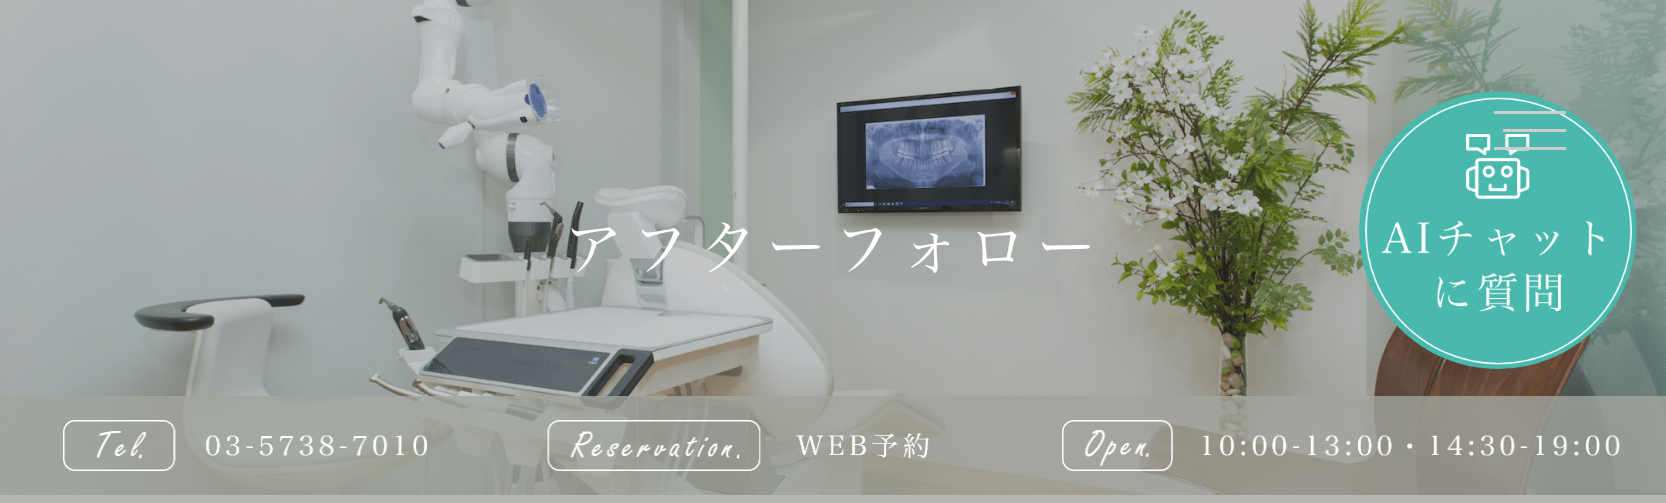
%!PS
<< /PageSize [1666 503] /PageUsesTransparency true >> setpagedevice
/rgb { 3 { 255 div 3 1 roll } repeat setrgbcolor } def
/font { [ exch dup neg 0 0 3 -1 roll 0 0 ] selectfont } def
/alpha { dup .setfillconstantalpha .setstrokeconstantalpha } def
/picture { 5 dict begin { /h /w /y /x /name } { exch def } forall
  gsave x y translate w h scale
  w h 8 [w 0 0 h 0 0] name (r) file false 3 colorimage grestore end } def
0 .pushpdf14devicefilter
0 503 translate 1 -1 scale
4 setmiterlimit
255 255 255 rgb
0 0 1666 503 rectfill
(img_01.rgb) 0 0 1666 495 picture
(img_05.rgb) 1359 91 278 278 picture
204 204 204 rgb
1494 111 72 3 rectfill
1503 129 63 3 rectfill
1494 147 72 3 rectfill
0.8 alpha
161 165 157 rgb
0 396 1666 107 rectfill
1 alpha
(img_02.rgb) 63 420 365 51 picture
(img_03.rgb) 547 420 382 51 picture
(img_04.rgb) 1062 420 558 51 picture
/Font-Light 60 font
255 255 255 rgb
563 270 moveto 7.5 0 (アフターフォロー) ashow
.poppdf14devicefilter showpage
